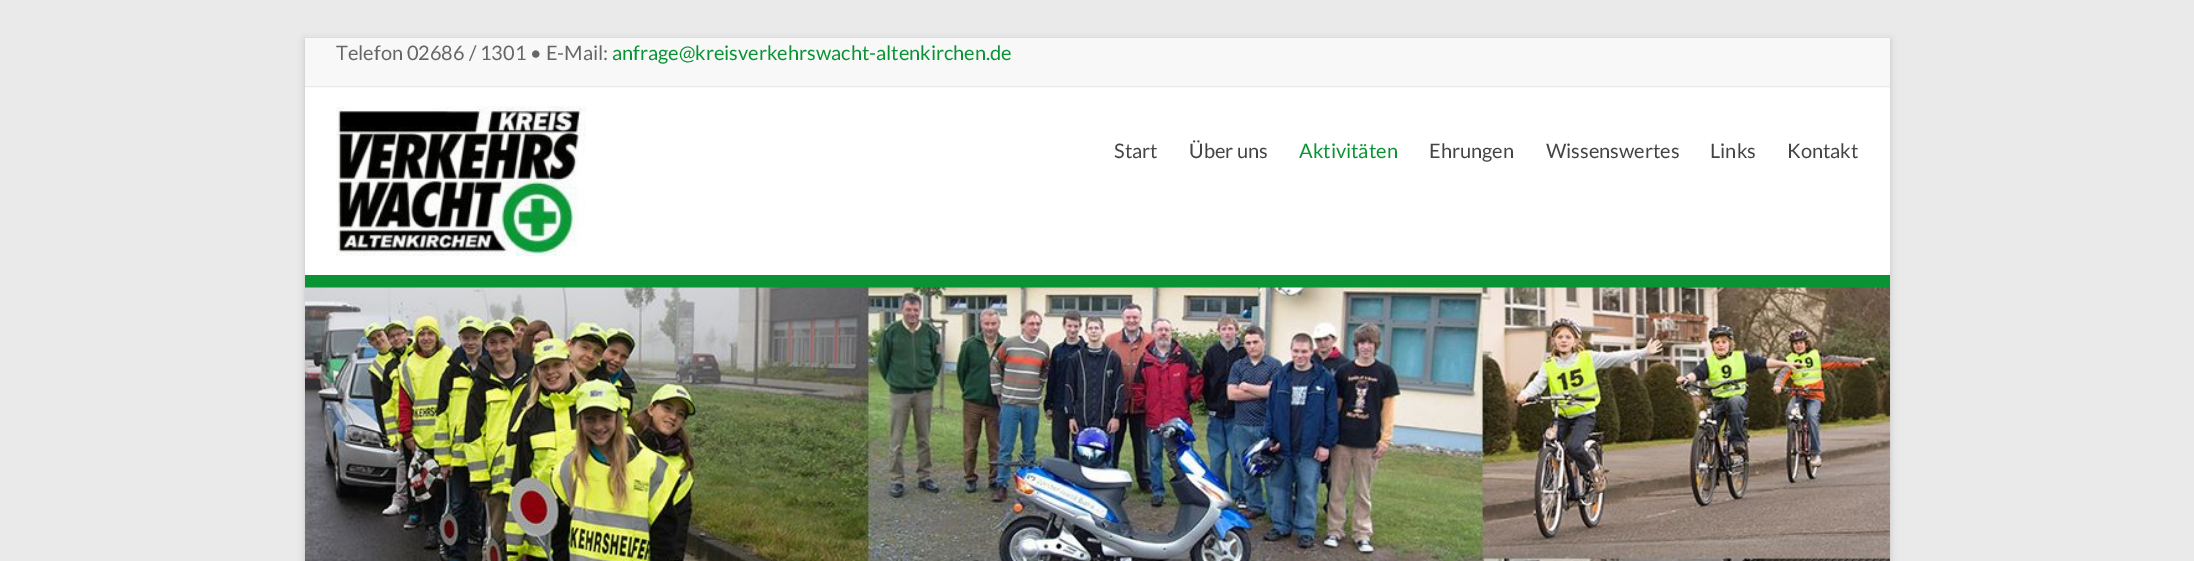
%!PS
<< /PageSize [2194 561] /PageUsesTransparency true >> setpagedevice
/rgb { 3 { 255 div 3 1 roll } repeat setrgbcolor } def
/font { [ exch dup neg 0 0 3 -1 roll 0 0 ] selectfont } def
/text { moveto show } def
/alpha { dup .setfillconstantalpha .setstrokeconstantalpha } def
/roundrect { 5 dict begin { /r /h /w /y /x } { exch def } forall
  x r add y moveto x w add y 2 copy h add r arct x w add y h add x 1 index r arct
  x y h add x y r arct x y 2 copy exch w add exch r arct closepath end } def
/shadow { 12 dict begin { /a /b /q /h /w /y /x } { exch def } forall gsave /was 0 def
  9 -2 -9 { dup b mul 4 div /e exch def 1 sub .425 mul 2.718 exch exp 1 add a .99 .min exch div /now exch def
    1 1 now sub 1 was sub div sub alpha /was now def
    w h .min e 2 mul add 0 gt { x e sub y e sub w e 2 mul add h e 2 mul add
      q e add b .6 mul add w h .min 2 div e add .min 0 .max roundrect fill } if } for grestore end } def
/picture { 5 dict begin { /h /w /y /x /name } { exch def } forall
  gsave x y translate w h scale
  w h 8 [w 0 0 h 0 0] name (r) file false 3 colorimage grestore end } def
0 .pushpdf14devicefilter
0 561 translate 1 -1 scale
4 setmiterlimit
234 234 234 rgb
0 0 2194 561 rectfill
100 100 100 rgb
305 40 1585 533 0 4 0.3 shadow
255 255 255 rgb
305 88 1585 187 rectfill
248 248 248 rgb
305 38 1585 50 rectfill
234 234 234 rgb
305 86 1585 1 rectfill
9 147 51 rgb
305 275 1585 13 rectfill
(img_01.rgb) 336 106 250 151 picture
(img_02.rgb) 305 287 1585 274 picture
/Lato-Regular 20 font
102 102 102 rgb
(Telefon 02686 / 1301 • E-Mail:) 336 60 text
9 147 51 rgb
(anfrage@kreisverkehrswacht-altenkirchen.de) 612 60 text
68 68 68 rgb
(Start) 1114 158 text
(Über uns) 1189 158 text
9 147 51 rgb
(Aktivitäten) 1299 158 text
68 68 68 rgb
(Ehrungen) 1429 158 text
(Wissenswertes) 1546 158 text
(Links) 1710 158 text
(Kontakt) 1787 158 text
.poppdf14devicefilter showpage
